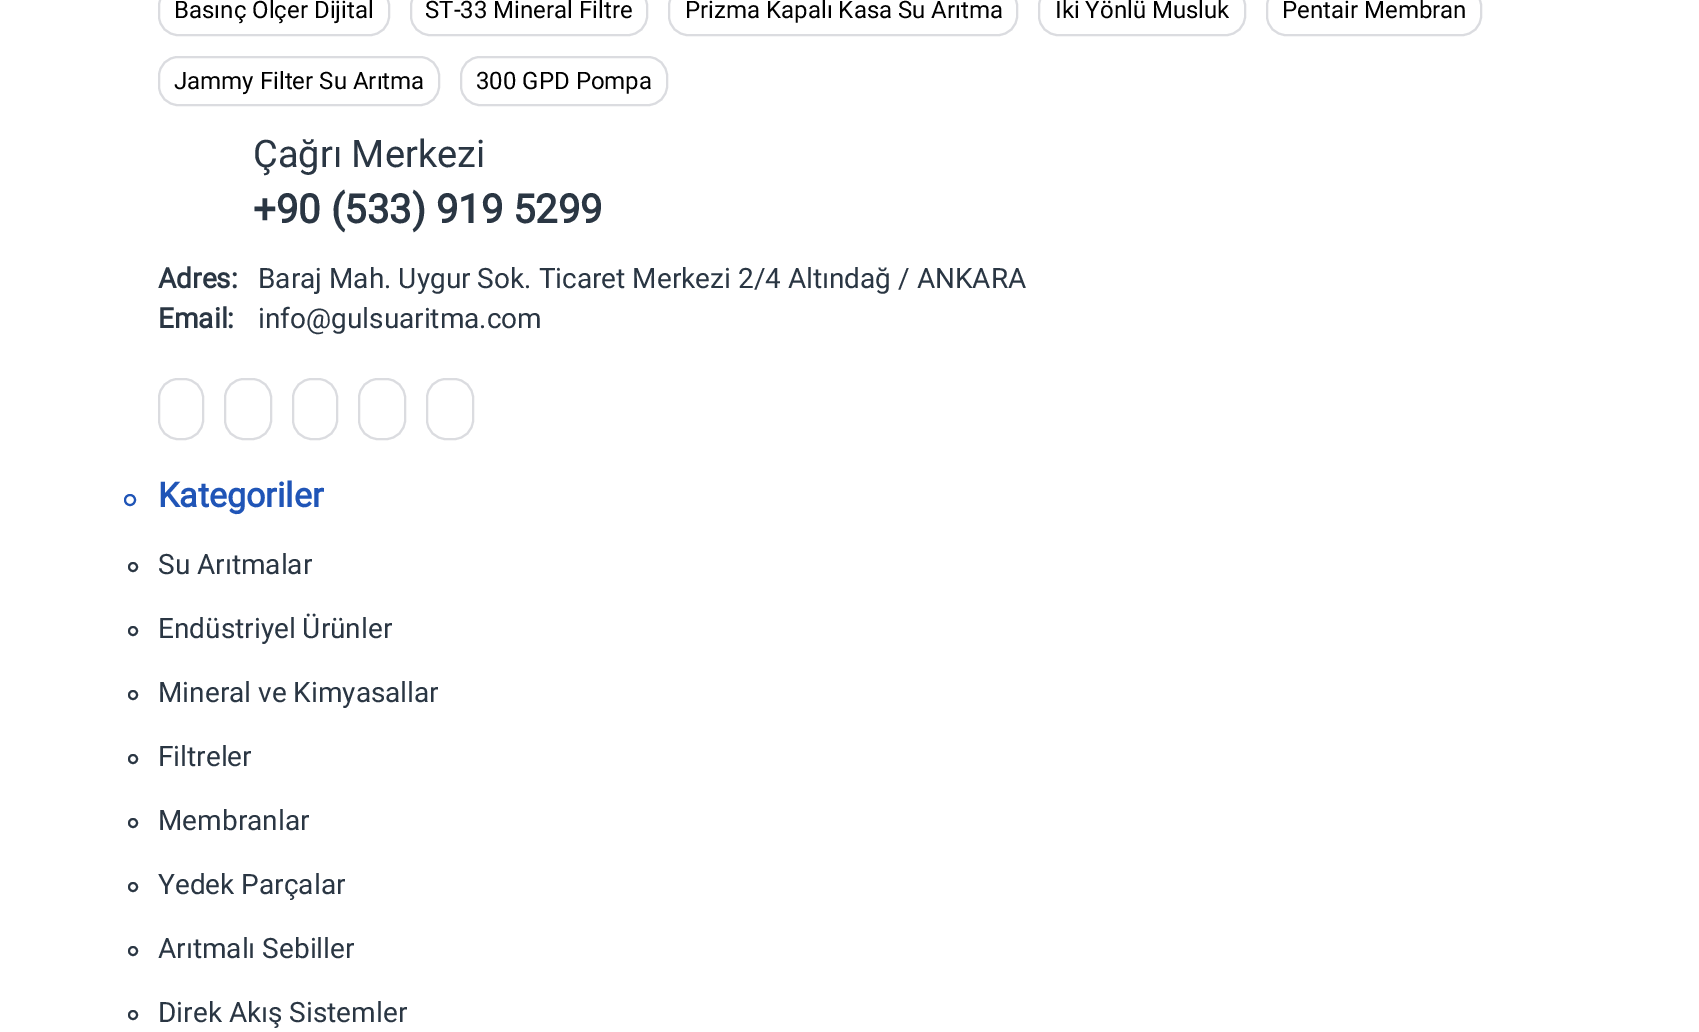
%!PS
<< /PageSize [1699 1032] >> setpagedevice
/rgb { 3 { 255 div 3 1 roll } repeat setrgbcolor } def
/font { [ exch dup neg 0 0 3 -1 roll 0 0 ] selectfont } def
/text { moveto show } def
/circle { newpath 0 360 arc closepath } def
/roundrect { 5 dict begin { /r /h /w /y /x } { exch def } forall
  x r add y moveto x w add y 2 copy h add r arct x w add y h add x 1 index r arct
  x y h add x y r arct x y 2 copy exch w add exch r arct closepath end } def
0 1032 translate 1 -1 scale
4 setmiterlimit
255 255 255 rgb
0 0 1699 1032 rectfill
219 220 224 rgb
2 setlinewidth
159 -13 230 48 19 roundrect stroke
411 -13 236 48 19 roundrect stroke
669 -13 348 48 19 roundrect stroke
1039 -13 206 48 19 roundrect stroke
1267 -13 214 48 19 roundrect stroke
159 57 280 48 19 roundrect stroke
461 57 206 48 19 roundrect stroke
159 379 44 60 19 roundrect stroke
225 379 46 60 19 roundrect stroke
293 379 44 60 19 roundrect stroke
359 379 46 60 19 roundrect stroke
427 379 46 60 19 roundrect stroke
32 85 183 rgb
130 500 5 circle stroke
42 54 67 rgb
133 567 4 circle stroke
133 631 4 circle stroke
133 695 4 circle stroke
133 759 4 circle stroke
133 823 4 circle stroke
133 887 4 circle stroke
133 951 4 circle stroke
133 1015 4 circle stroke
/Roboto-Regular 24 font
0 0 0 rgb
(Basınç Ölçer Dijital) 174 18 text
(ST-33 Mineral Filtre) 425 18 text
(Prizma Kapalı Kasa Su Arıtma) 685 18 text
(İki Yönlü Musluk) 1055 18 text
(Pentair Membran) 1282 18 text
(Jammy Filter Su Arıtma) 174 89 text
(300 GPD Pompa) 476 89 text
/Roboto-Regular 38 font
42 54 67 rgb
(Çağrı Merkezi) 253 167 text
/Roboto-Bold 40 font
(+90 \(533\) 919 5299) 253 223 text
/Roboto-Bold 28 font
(Adres:) 158 288 text
/Roboto-Regular 28 font
(Baraj Mah. Uygur Sok. Ticaret Merkezi 2/4 Altındağ / ANKARA) 258 288 text
/Roboto-Bold 28 font
(Email:) 158 328 text
/Roboto-Regular 28 font
(info@gulsuaritma.com) 258 328 text
/Roboto-Bold 34 font
32 85 183 rgb
(Kategoriler) 158 507 text
/Roboto-Regular 28 font
42 54 67 rgb
(Su Arıtmalar) 158 574 text
(Endüstriyel Ürünler) 158 638 text
(Mineral ve Kimyasallar) 158 702 text
(Filtreler) 158 766 text
(Membranlar) 158 830 text
(Yedek Parçalar) 158 894 text
(Arıtmalı Sebiller) 158 958 text
(Direk Akış Sistemler) 158 1022 text
showpage
